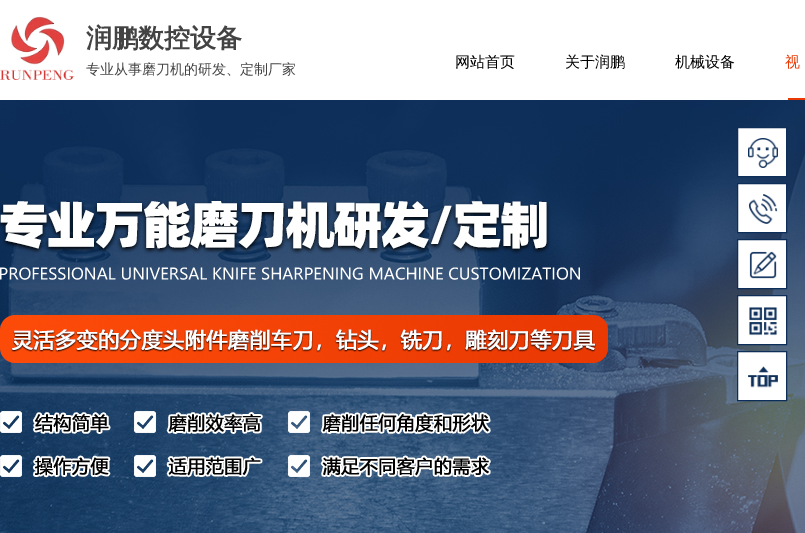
%!PS
<< /PageSize [805 533] >> setpagedevice
/rgb { 3 { 255 div 3 1 roll } repeat setrgbcolor } def
/font { [ exch dup neg 0 0 3 -1 roll 0 0 ] selectfont } def
/text { moveto show } def
/picture { 5 dict begin { /h /w /y /x /name } { exch def } forall
  gsave x y translate w h scale
  w h 8 [w 0 0 h 0 0] name (r) file false 3 colorimage grestore end } def
0 533 translate 1 -1 scale
4 setmiterlimit
255 255 255 rgb
0 0 805 533 rectfill
(img_01.rgb) 0 16 75 64 picture
234 57 3 rgb
788 98 17 2 rectfill
(img_02.rgb) 0 100 805 433 picture
255 255 255 rgb
737.5 127.5 moveto 49 0 rlineto 0 49 rlineto -49 0 rlineto closepath gsave fill grestore
13 46 89 rgb
stroke
(img_03.rgb) 748 138 30 30 picture
255 255 255 rgb
737.5 183.5 moveto 49 0 rlineto 0 49 rlineto -49 0 rlineto closepath gsave fill grestore
13 46 89 rgb
stroke
(img_04.rgb) 748 194 30 30 picture
255 255 255 rgb
737.5 239.5 moveto 49 0 rlineto 0 49 rlineto -49 0 rlineto closepath gsave fill grestore
13 46 89 rgb
stroke
(img_05.rgb) 749 251 28 28 picture
255 255 255 rgb
737.5 295.5 moveto 49 0 rlineto 0 49 rlineto -49 0 rlineto closepath gsave fill grestore
13 46 89 rgb
stroke
(img_06.rgb) 749 307 29 29 picture
255 255 255 rgb
737.5 351.5 moveto 49 0 rlineto 0 49 rlineto -49 0 rlineto closepath gsave fill grestore
13 46 89 rgb
stroke
(img_07.rgb) 748 366 30 22 picture
/WenQuanYiZenHei-Bold 26 font
67 67 67 rgb
(润鹏数控设备) 86 47 text
/WenQuanYiZenHei-Medium 14 font
(专业从事磨刀机的研发、定制厂家) 86 74 text
/WenQuanYiZenHei-Medium 15 font
0 0 0 rgb
(网站首页) 455 67 text
(关于润鹏) 565 67 text
(机械设备) 675 67 text
234 57 3 rgb
(视) 785 67 text
showpage
